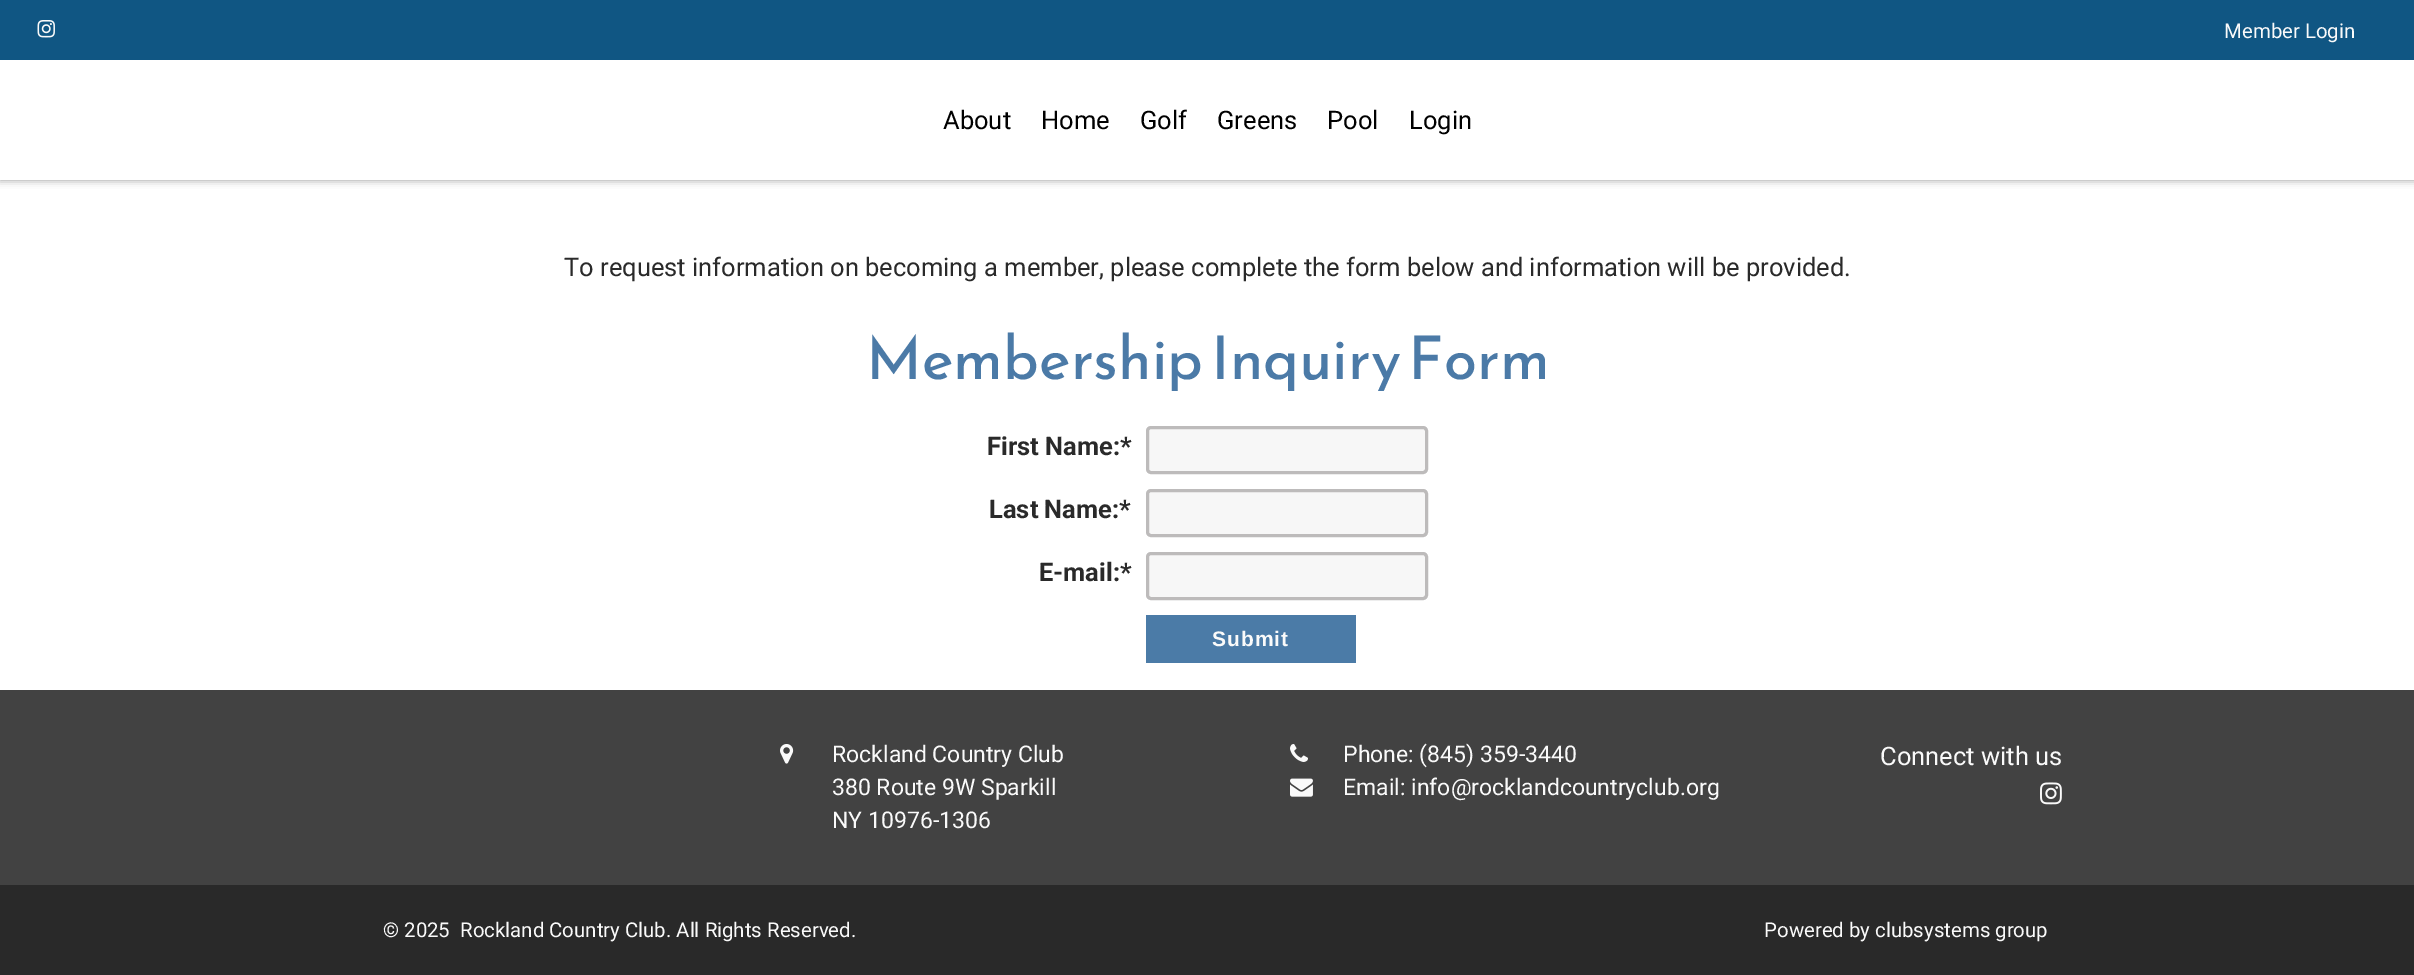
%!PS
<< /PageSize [2414 975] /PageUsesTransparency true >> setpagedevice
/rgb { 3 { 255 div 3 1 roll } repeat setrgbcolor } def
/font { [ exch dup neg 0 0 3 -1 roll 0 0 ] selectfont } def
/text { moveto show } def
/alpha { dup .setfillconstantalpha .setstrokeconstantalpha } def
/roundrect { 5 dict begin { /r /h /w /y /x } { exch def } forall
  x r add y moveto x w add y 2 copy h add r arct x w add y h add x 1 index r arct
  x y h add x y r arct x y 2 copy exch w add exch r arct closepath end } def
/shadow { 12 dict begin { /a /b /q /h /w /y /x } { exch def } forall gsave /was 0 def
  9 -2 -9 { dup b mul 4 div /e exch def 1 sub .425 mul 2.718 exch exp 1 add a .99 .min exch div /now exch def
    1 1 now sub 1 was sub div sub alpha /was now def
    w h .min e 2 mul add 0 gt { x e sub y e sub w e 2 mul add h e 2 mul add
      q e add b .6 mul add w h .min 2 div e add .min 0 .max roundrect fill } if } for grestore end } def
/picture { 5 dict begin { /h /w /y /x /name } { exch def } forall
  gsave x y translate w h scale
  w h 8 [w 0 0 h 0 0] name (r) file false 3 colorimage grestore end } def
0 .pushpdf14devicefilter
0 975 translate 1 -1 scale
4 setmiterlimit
255 255 255 rgb
0 0 2414 975 rectfill
0 0 0 rgb
0 0 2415 180 0 4 0.4 shadow
16 86 131 rgb
0 0 2414 60 rectfill
(img_01.rgb) 37 20 18 18 picture
255 255 255 rgb
0 60 2414 120 rectfill
247 247 247 rgb
1147.5 427.5 279 45 3.5 roundrect gsave fill grestore
189 187 187 rgb
3 setlinewidth
stroke
247 247 247 rgb
1147.5 490.5 279 45 3.5 roundrect gsave fill grestore
189 187 187 rgb
stroke
247 247 247 rgb
1147.5 553.5 279 45 3.5 roundrect gsave fill grestore
189 187 187 rgb
stroke
75 123 167 rgb
1146 615 210 48 rectfill
66 66 66 rgb
0 690 2414 195 rectfill
(img_02.rgb) 780 744 14 20 picture
(img_03.rgb) 1290 744 18 18 picture
(img_04.rgb) 1290 778 23 19 picture
(img_05.rgb) 2040 782 22 23 picture
41 41 41 rgb
0 885 2414 90 rectfill
/Roboto-Regular 20.4 font
250 250 250 rgb
(Member Login) 2224 38 text
/Roboto-Regular 25.5 font
0 0 0 rgb
(About) 943 129 text
(Home) 1041 129 text
(Golf) 1140 129 text
(Greens) 1217 129 text
(Pool) 1327 129 text
(Login) 1409 129 text
42 42 42 rgb
(To request information on becoming a member, please complete the form below and information will be provided.) 564 276 text
/ReemKufi-Regular 60 font
75 122 167 rgb
(Membership Inquiry Form) 866 379 text
/Roboto-Bold 25.5 font
42 42 42 rgb
(First Name:*) 987 455 text
(Last Name:*) 989 518 text
(E-mail:*) 1039 581 text
/LiberationSans-Bold 21 font
250 250 250 rgb
1212 646 moveto 1 0 (Submit) ashow
/Roboto-Regular 23 font
(Rockland Country Club) 832 762 text
(380 Route 9W Sparkill) 832 795 text
(NY 10976-1306) 832 828 text
(Phone: \(845\) 359-3440) 1343 762 text
(Email: info@rocklandcountryclub.org) 1343 795 text
/Roboto-Regular 25.5 font
(Connect with us) 1880 765 text
/Roboto-Regular 20.4 font
(© 2025  Rockland Country Club. All Rights Reserved.) 383 937 text
(Powered by clubsystems group) 1764 937 text
.poppdf14devicefilter showpage
